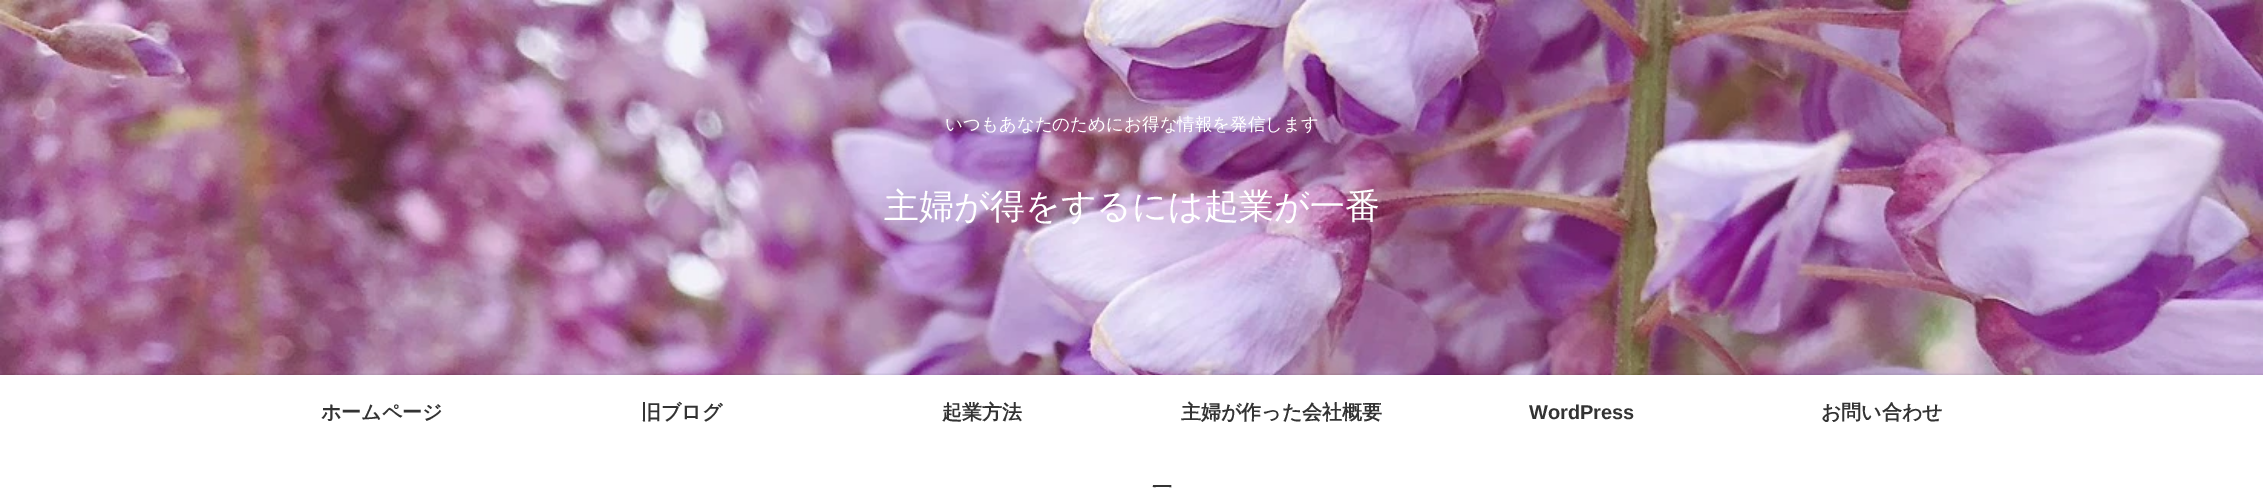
%!PS
<< /PageSize [2263 488] /PageUsesTransparency true >> setpagedevice
/rgb { 3 { 255 div 3 1 roll } repeat setrgbcolor } def
/font { [ exch dup neg 0 0 3 -1 roll 0 0 ] selectfont } def
/text { moveto show } def
/alpha { dup .setfillconstantalpha .setstrokeconstantalpha } def
/roundrect { 5 dict begin { /r /h /w /y /x } { exch def } forall
  x r add y moveto x w add y 2 copy h add r arct x w add y h add x 1 index r arct
  x y h add x y r arct x y 2 copy exch w add exch r arct closepath end } def
/shadow { 12 dict begin { /a /b /q /h /w /y /x } { exch def } forall gsave /was 0 def
  9 -2 -9 { dup b mul 4 div /e exch def 1 sub .425 mul 2.718 exch exp 1 add a .99 .min exch div /now exch def
    1 1 now sub 1 was sub div sub alpha /was now def
    w h .min e 2 mul add 0 gt { x e sub y e sub w e 2 mul add h e 2 mul add
      q e add b .6 mul add w h .min 2 div e add .min 0 .max roundrect fill } if } for grestore end } def
/picture { 5 dict begin { /h /w /y /x /name } { exch def } forall
  gsave x y translate w h scale
  w h 8 [w 0 0 h 0 0] name (r) file false 3 colorimage grestore end } def
0 .pushpdf14devicefilter
0 488 translate 1 -1 scale
4 setmiterlimit
255 255 255 rgb
0 0 2263 488 rectfill
(img_01.rgb) 0 0 2263 375 picture
gsave
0 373 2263 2 rectclip
0 0 0 rgb
0 376 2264 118 0 2 0.25 shadow
grestore
/WenQuanYiZenHei-Medium 17.5 font
(いつもあなたのためにお得な情報を発信します) 945 130 text
/WenQuanYiZenHei-Medium 35 font
(主婦が得をするには起業が一番) 884 218 text
/WenQuanYiZenHei-Bold 20 font
51 51 51 rgb
(ホームページ) 321 419 text
(旧ブログ) 641 419 text
(起業方法) 942 419 text
(主婦が作った会社概要) 1181 419 text
/LiberationSans-Bold 20 font
(WordPress) 1529 419 text
/WenQuanYiZenHei-Bold 20 font
(お問い合わせ) 1821 419 text
(一) 1152 494 text
.poppdf14devicefilter showpage
